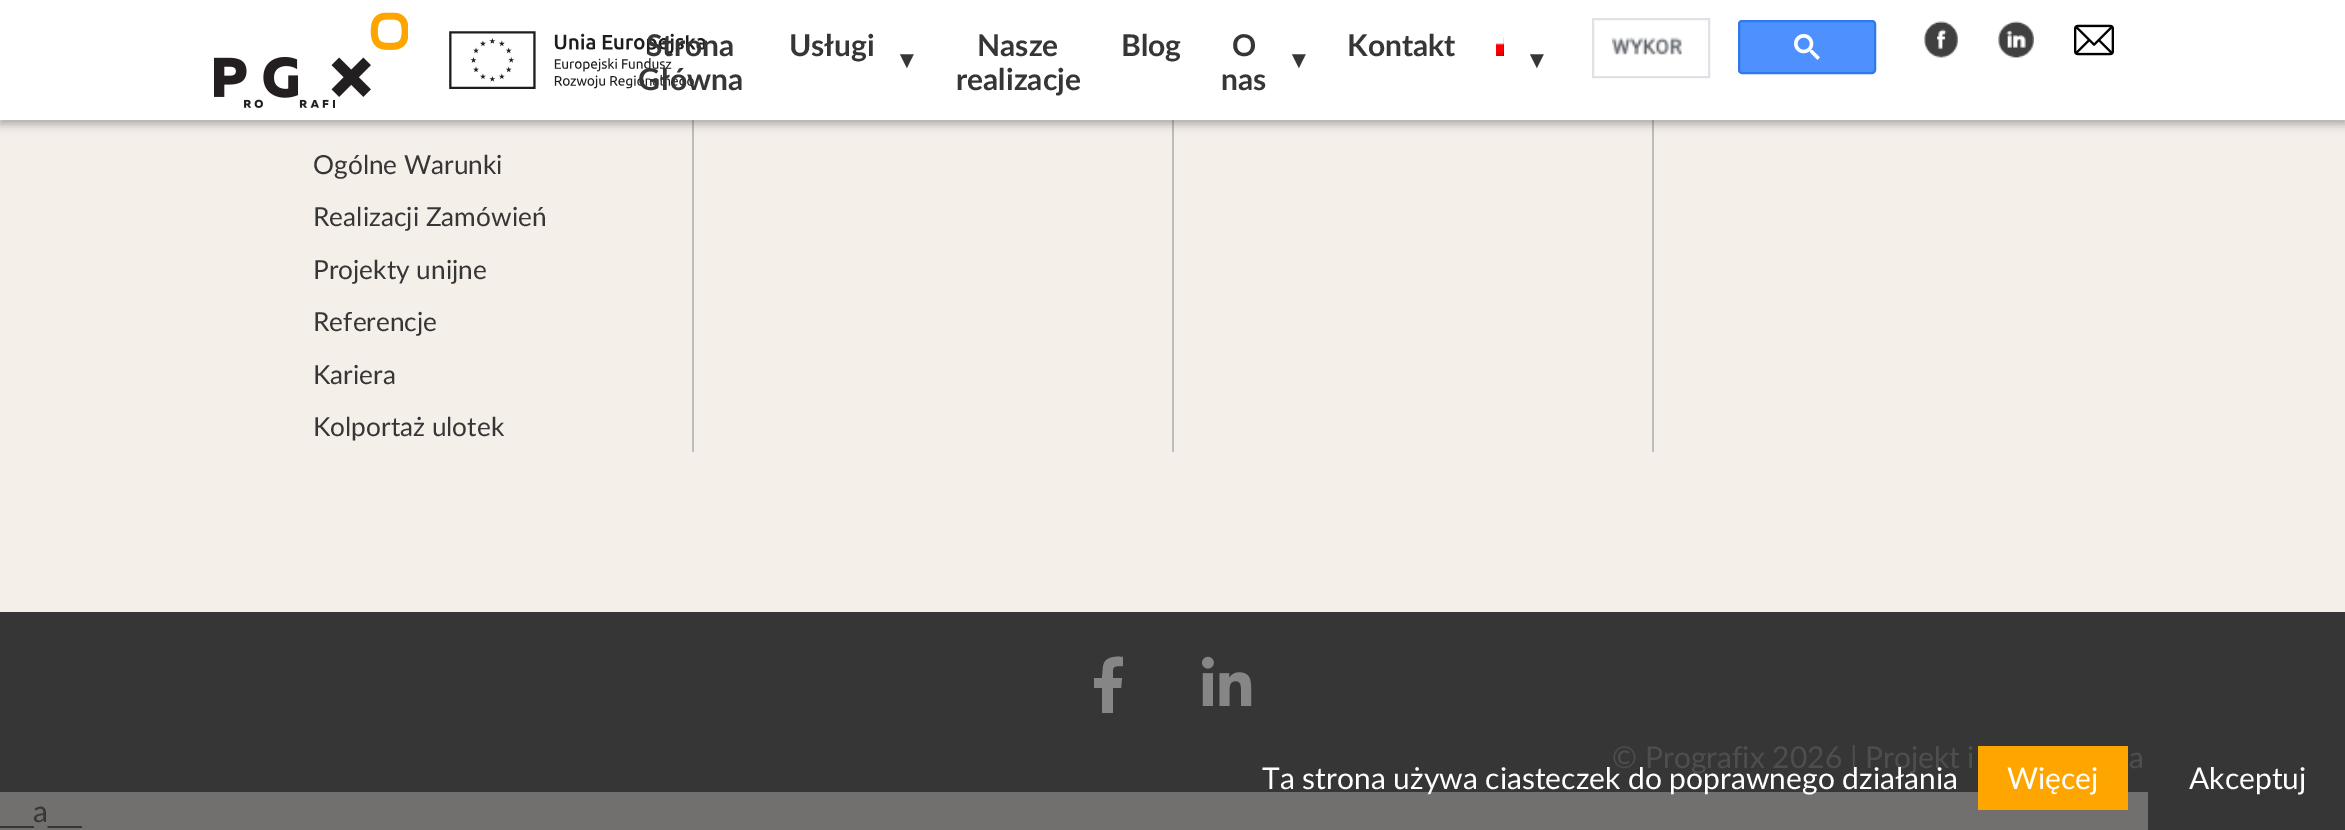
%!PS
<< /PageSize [2345 830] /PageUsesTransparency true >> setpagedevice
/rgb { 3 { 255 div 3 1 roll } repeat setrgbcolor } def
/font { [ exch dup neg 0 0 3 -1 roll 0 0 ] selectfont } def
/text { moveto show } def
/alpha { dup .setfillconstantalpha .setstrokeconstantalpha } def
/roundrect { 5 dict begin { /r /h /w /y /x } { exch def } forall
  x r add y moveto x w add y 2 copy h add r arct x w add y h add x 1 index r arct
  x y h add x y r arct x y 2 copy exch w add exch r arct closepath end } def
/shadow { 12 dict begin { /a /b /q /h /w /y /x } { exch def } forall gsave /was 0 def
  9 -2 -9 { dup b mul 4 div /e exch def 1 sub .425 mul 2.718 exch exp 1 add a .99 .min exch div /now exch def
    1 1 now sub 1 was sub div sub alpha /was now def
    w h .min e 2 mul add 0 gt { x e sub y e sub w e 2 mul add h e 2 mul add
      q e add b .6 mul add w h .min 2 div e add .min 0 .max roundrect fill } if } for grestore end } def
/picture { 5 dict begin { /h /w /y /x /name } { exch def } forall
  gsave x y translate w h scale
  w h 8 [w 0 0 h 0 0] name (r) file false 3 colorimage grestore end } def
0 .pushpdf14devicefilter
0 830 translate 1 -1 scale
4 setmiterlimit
113 112 111 rgb
0 0 2345 830 rectfill
245 239 234 rgb
0 120 2345 492 rectfill
189 189 189 rgb
692 120 2 332 rectfill
1172 120 2 332 rectfill
1652 120 2 332 rectfill
54 54 54 rgb
0 4 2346 120 0 5 0.4 shadow
255 255 255 rgb
0 0 2345 120 rectfill
(img_01.rgb) 214 12 194 96 picture
(img_02.rgb) 449 31 257 58 picture
(img_03.rgb) 1496 36 8 20 picture
223 225 229 rgb
2 setlinewidth
1593 19 116 58 rectstroke
(img_04.rgb) 1612 37 70 18 picture
77 144 254 rgb
1739 21 136 52 3 roundrect gsave fill grestore
48 121 237 rgb
stroke
(img_05.rgb) 1794 34 26 26 picture
(img_06.rgb) 1924 21 34 37 picture
(img_07.rgb) 1998 21 36 37 picture
(img_08.rgb) 2074 24 40 32 picture
54 54 54 rgb
0 612 2345 114 rectfill
134 134 134 rgb
1102 713 moveto 0 -25 rlineto -8 0 rlineto 0 -10 rlineto 8 0 rlineto 1 -11 rlineto 1 -10 11 -11 20 -10 rcurveto 0 9 rlineto -12 0 -10 1 -10 12 rcurveto 9 0 rlineto -1 10 rlineto -8 0 rlineto 0 25 rlineto closepath fill
(img_09.rgb) 1202 656 50 50 picture
54 54 54 rgb
0 726 2148 66 rectfill
255 165 0 rgb
1978 746 150 64 rectfill
54 54 54 rgb
2148 726 197 104 rectfill
/Lato-Bold 30 font
(Strona) 646 56 text
(Główna) 638 90 text
(Usługi) 789 56 text
/LiberationSans-Regular 24 font
(▼) 895 68 text
/Lato-Bold 30 font
(Nasze) 977 56 text
(realizacje) 956 90 text
(Blog) 1121 56 text
(O) 1232 56 text
(nas) 1221 90 text
/LiberationSans-Regular 24 font
(▼) 1287 68 text
/Lato-Bold 30 font
(Kontakt) 1347 56 text
/LiberationSans-Regular 24 font
(▼) 1525 68 text
/Lato-Regular 26.25 font
(Ogólne Warunki) 313 174 text
(Realizacji Zamówień) 313 226 text
(Projekty unijne) 313 279 text
(Referencje) 313 331 text
(Kariera) 313 384 text
(Kolportaż ulotek) 313 436 text
/Lato-Regular 30 font
78 78 78 rgb
(© Prografix 2026 | Projekt i) 1612 768 text
(a) 2129 768 text
255 255 255 rgb
(Ta strona używa ciasteczek do poprawnego działania) 1262 789 text
(Więcej) 2007 789 text
(Akceptuj) 2189 789 text
54 54 54 rgb
(a) 33 822 text
/LiberationSans-Regular 30 font
(__) 0 822 text
(__) 48 822 text
.poppdf14devicefilter showpage
